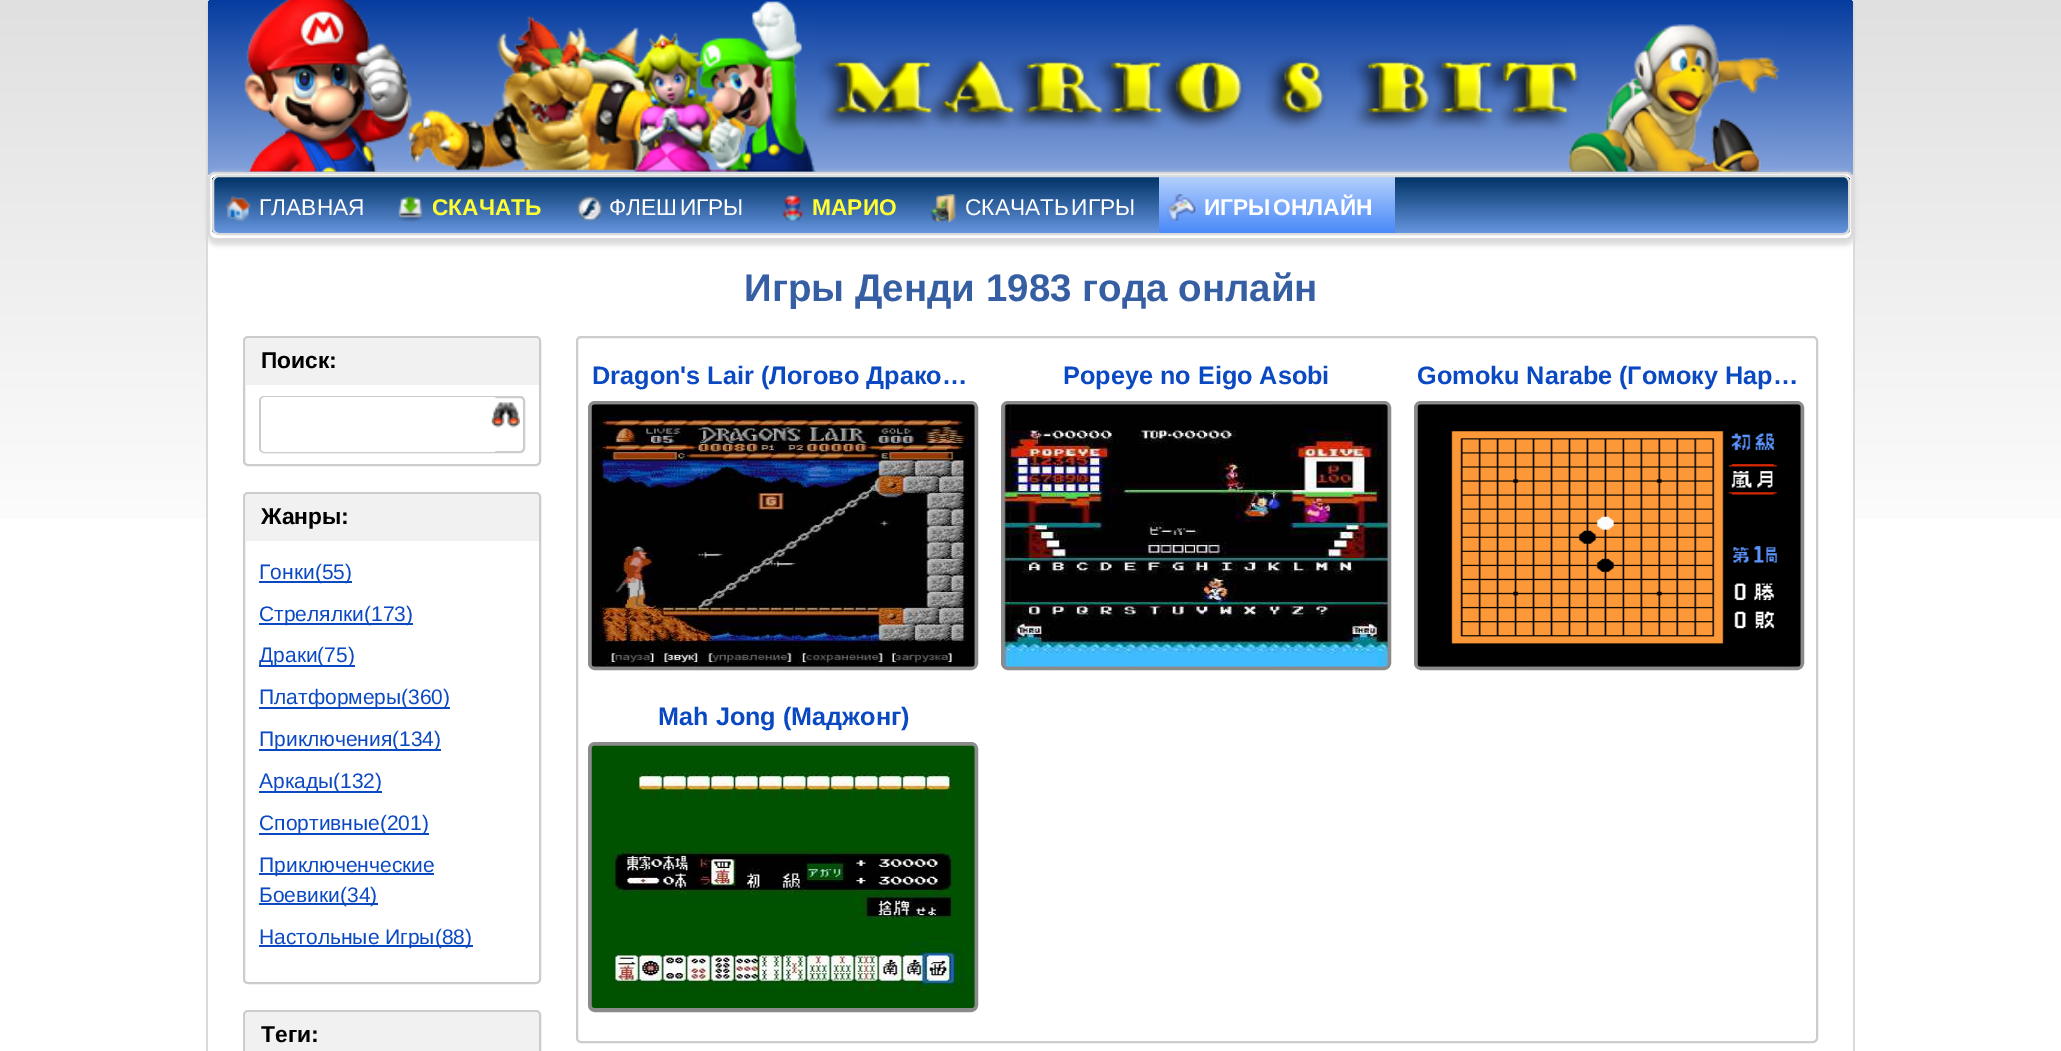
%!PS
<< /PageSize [2061 1051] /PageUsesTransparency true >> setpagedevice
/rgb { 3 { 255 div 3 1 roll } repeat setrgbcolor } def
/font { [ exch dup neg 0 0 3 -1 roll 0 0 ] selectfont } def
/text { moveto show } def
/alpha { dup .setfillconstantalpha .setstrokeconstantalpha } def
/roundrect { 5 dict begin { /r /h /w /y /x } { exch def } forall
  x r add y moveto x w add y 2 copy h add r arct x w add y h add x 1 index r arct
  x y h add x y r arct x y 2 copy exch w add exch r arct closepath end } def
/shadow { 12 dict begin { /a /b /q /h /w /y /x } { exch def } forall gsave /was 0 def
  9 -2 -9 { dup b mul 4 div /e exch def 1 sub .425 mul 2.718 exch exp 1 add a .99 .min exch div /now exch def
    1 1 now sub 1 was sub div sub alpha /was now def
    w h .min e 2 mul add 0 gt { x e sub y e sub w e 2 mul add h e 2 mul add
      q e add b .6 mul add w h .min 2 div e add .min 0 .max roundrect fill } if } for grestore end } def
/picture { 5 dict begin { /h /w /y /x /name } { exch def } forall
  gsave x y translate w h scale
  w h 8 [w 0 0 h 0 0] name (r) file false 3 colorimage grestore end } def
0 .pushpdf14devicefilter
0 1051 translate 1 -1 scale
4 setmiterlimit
255 255 255 rgb
0 0 2061 1051 rectfill
gsave 0 0 moveto 2061 0 rlineto 0 519 rlineto -2061 0 rlineto closepath clip newpath
<< /ShadingType 2 /ColorSpace /DeviceRGB /Coords [0 0 0 565] /Extend [true true] /Function << /FunctionType 2 /Domain [0 1] /C0 [0.878 0.878 0.878] /C1 [1 1 1] /N 1 >> >> shfill grestore
207 0 1648 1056 5 roundrect fill
218 218 218 rgb
212 0 moveto 1638 0 rlineto 3 0 5 2 5 5 rcurveto 0 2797 rlineto 0 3 -2 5 -5 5 rcurveto -1638 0 rlineto -3 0 -6 -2 -6 -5 rcurveto 0 -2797 rlineto 0 -3 3 -5 6 -5 rcurveto closepath 212 0 moveto 1638 0 rlineto 2 0 3 2 3 5 rcurveto 0 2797 rlineto 0 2 -1 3 -3 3 rcurveto -1638 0 rlineto -2 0 -4 -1 -4 -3 rcurveto 0 -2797 rlineto 0 -3 2 -5 4 -5 rcurveto closepath eofill
gsave 213 0 moveto 1635 0 rlineto 3 0 5 2 5 5 rcurveto 0 170 rlineto -1645 0 rlineto 0 -170 rlineto 0 -3 2 -5 5 -5 rcurveto closepath clip newpath
<< /ShadingType 2 /ColorSpace /DeviceRGB /Coords [208 0 208 175] /Extend [true true] /Function << /FunctionType 2 /Domain [0 1] /C0 [0.024 0.235 0.624] /C1 [0.522 0.639 0.863] /N 1 >> >> shfill grestore
207 173 1648 72 9 2.5 1 shadow
(img_01.rgb) 244 0 572 172 picture
(img_03.rgb) 1567 24 213 148 picture
(img_02.rgb) 818 55 764 76 picture
255 255 255 rgb
209 173 1643 66 6 roundrect gsave fill grestore
218 218 218 rgb
2 setlinewidth
stroke
gsave
212 175 1638 60 7 roundrect clip newpath
gsave 212 177 moveto 1638 0 rlineto 0 56 rlineto -1638 0 rlineto closepath clip newpath
<< /ShadingType 2 /ColorSpace /DeviceRGB /Coords [214 177 214 233] /Extend [true true] /Function << /FunctionType 2 /Domain [0 1] /C0 [0 0.2 0.4] /C1 [0.4 0.584 0.875] /N 1 >> >> shfill grestore
grestore
213 176 1636 58 6 roundrect stroke
(img_04.rgb) 225 195 26 27 picture
(img_05.rgb) 397 195 26 27 picture
(img_06.rgb) 577 195 25 26 picture
(img_07.rgb) 782 195 22 26 picture
(img_08.rgb) 929 194 27 29 picture
gsave 1159 177 moveto 236 0 rlineto 0 56 rlineto -236 0 rlineto closepath clip newpath
<< /ShadingType 2 /ColorSpace /DeviceRGB /Coords [1277 233 1277 177] /Extend [true true] /Function << /FunctionType 2 /Domain [0 1] /C0 [0.286 0.537 0.973] /C1 [0.702 0.812 0.992] /N 1 >> >> shfill grestore
(img_09.rgb) 1167 194 29 27 picture
204 204 204 rgb
244 337 296 128 4 roundrect stroke
241 241 241 rgb
249 338 moveto 286 0 rlineto 2 0 4 2 4 4 rcurveto 0 43 rlineto -294 0 rlineto 0 -43 rlineto 0 -2 2 -4 4 -4 rcurveto closepath fill
204 204 204 rgb
260 397 264 55 4 roundrect stroke
255 255 255 rgb
261 397 236 55 4 roundrect fill
(img_10.rgb) 491 402 29 26 picture
204 204 204 rgb
244 493 296 490 4 roundrect stroke
241 241 241 rgb
249 494 moveto 286 0 rlineto 2 0 4 2 4 4 rcurveto 0 43 rlineto -294 0 rlineto 0 -43 rlineto 0 -2 2 -4 4 -4 rcurveto closepath fill
11 73 194 rgb
259 581 93 2 rectfill
259 623 154 2 rectfill
259 665 96 2 rectfill
259 707 191 2 rectfill
259 749 182 2 rectfill
259 791 123 2 rectfill
259 833 170 2 rectfill
259 873 175 2 rectfill
259 903 119 2 rectfill
259 945 214 2 rectfill
204 204 204 rgb
244 1011 296 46 4 roundrect stroke
241 241 241 rgb
249 1012 moveto 286 0 rlineto 2 0 4 2 4 4 rcurveto 0 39 rlineto -294 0 rlineto 0 -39 rlineto 0 -2 2 -4 4 -4 rcurveto closepath fill
204 204 204 rgb
577 337 1240 705 4 roundrect stroke
(img_11.rgb) 592 405 382 261 picture
139 139 139 rgb
4 setlinewidth
590 403 386 265 5 roundrect stroke
(img_12.rgb) 591 404 384 263 picture
(img_13.rgb) 1005 405 382 261 picture
1003 403 386 265 5 roundrect stroke
(img_14.rgb) 1004 404 384 263 picture
(img_15.rgb) 1418 405 382 261 picture
1416 403 386 265 5 roundrect stroke
(img_16.rgb) 1417 404 384 263 picture
(img_17.rgb) 592 746 382 262 picture
590 744 386 266 5 roundrect stroke
(img_18.rgb) 591 745 384 263 picture
/LiberationSans-Regular 22.75 font
255 255 255 rgb
(ГЛАВНАЯ) 259 215 text
/LiberationSans-Bold 22.75 font
255 255 51 rgb
(СКАЧАТЬ) 432 215 text
/LiberationSans-Regular 22.75 font
255 255 255 rgb
609 215 moveto -4 0 32 (ФЛЕШ ИГРЫ) widthshow
/LiberationSans-Bold 22.75 font
255 255 51 rgb
(МАРИО) 812 215 text
/LiberationSans-Regular 22.75 font
255 255 255 rgb
965 215 moveto -4 0 32 (СКАЧАТЬ ИГРЫ) widthshow
/LiberationSans-Bold 22.75 font
1204 215 moveto -4 0 32 (ИГРЫ ОНЛАЙН) widthshow
/LiberationSans-Bold 38.5 font
54 94 163 rgb
(Игры Денди 1983 года онлайн) 744 301 text
/LiberationSans-Bold 22.75 font
0 0 0 rgb
(Поиск:) 261 368 text
(Жанры:) 261 524 text
/LiberationSans-Regular 21 font
11 73 194 rgb
(Гонки\(55\)) 259 579 text
(Стрелялки\(173\)) 259 621 text
(Драки\(75\)) 259 662 text
(Платформеры\(360\)) 259 704 text
(Приключения\(134\)) 259 746 text
(Аркады\(132\)) 259 788 text
(Спортивные\(201\)) 259 830 text
(Приключенческие) 259 872 text
(Боевики\(34\)) 259 902 text
(Настольные Игры\(88\)) 259 944 text
/LiberationSans-Bold 22.75 font
0 0 0 rgb
(Теги:) 261 1042 text
/LiberationSans-Bold 25.25 font
11 73 194 rgb
(Dragon's Lair \(Логово Драко…) 592 384 text
(Popeye no Eigo Asobi) 1063 384 text
(Gomoku Narabe \(Гомоку Нар…) 1417 384 text
(Mah Jong \(Маджонг\)) 658 725 text
.poppdf14devicefilter showpage
